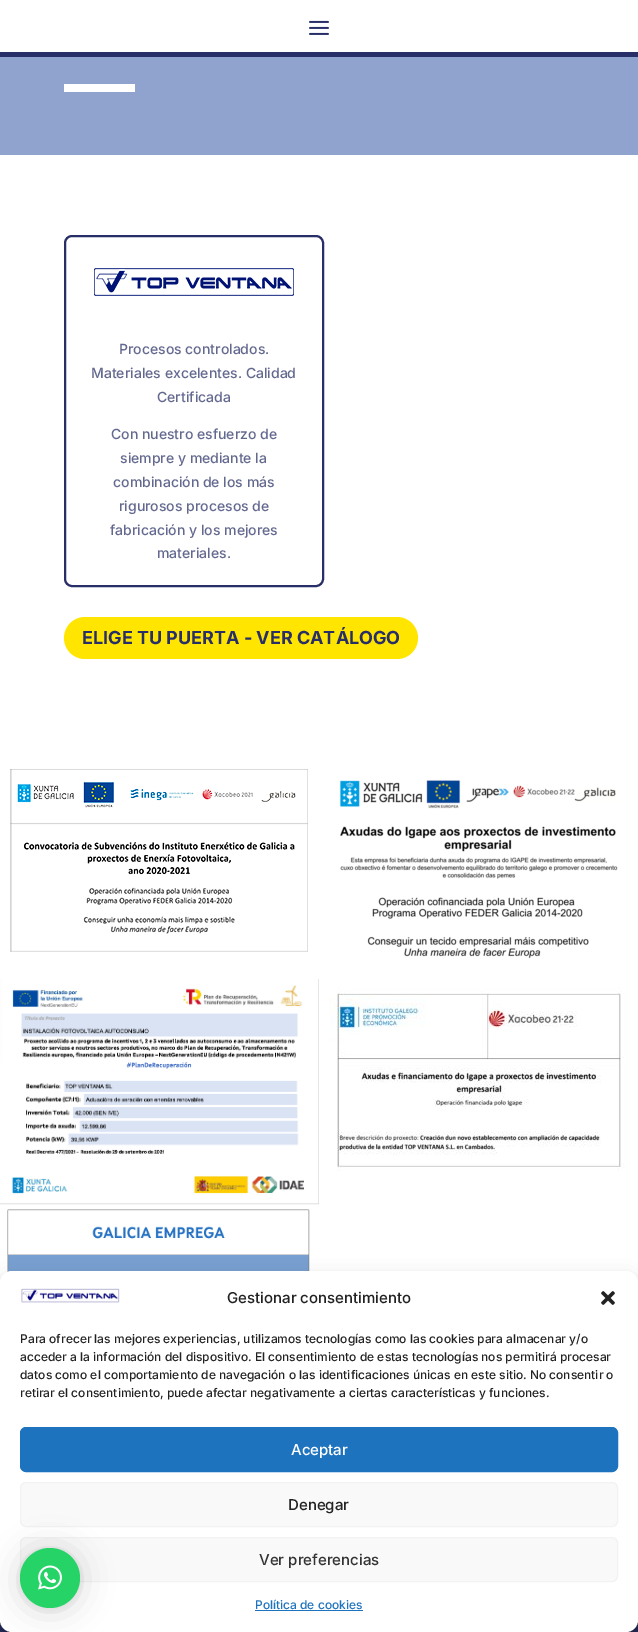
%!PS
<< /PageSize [638 1632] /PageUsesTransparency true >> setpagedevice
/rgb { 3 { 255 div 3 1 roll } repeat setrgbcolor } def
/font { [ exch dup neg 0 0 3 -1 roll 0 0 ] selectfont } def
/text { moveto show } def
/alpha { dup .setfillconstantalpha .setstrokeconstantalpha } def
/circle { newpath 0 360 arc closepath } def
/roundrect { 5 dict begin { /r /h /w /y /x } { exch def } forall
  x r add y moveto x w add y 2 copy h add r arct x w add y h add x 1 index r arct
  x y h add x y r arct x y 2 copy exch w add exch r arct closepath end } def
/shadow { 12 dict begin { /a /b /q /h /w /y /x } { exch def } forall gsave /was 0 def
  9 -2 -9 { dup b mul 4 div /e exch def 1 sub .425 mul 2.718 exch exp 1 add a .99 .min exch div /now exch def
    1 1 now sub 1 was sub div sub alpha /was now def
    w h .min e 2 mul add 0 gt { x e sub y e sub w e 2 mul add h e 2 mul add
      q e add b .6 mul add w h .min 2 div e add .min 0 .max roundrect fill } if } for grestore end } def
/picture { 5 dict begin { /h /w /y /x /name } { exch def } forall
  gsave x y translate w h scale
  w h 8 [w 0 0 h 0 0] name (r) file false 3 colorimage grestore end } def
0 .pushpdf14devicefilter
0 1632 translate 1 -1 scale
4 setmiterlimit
255 255 255 rgb
0 0 638 1632 rectfill
39 46 104 rgb
0 52 638 5 rectfill
(img_01.rgb) 309 20 20 15 picture
144 163 206 rgb
0 57 638 98 rectfill
255 255 255 rgb
64 84 71 8 rectfill
39 46 104 rgb
2 setlinewidth
65 236 258 350 7 roundrect stroke
(img_02.rgb) 94 268 200 28 picture
255 229 0 rgb
64 617 354 42 21 roundrect fill
(img_03.rgb) 10 769 298 183 picture
(img_04.rgb) 339 780 279 179 picture
(img_05.rgb) 0 979 319 226 picture
(img_06.rgb) 329 987 296 184 picture
(img_07.rgb) 7 1209 303 64 picture
39 46 104 rgb
0 1620 638 12 rectfill
0 0 0 rgb
0 1277 638 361 12 3 0.23 shadow
0 1281 638 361 12 10 0.19 shadow
255 255 255 rgb
0 1271 638 361 12 roundrect fill
(img_08.rgb) 21 1288 99 15 picture
(img_09.rgb) 601 1291 14 14 picture
30 115 190 rgb
20.5 1427.5 597 44 5.5 roundrect gsave fill grestore
1 setlinewidth
stroke
249 249 249 rgb
20.5 1482.5 597 44 5.5 roundrect gsave fill grestore
242 242 242 rgb
stroke
249 249 249 rgb
20.5 1537.5 597 44 5.5 roundrect gsave fill grestore
242 242 242 rgb
stroke
30 115 190 rgb
255 1610 108 1 rectfill
0 0 0 rgb
20 1550 60 60 30 16 0.16 shadow
20 1549 60 60 30 3 0.06 shadow
37 211 102 rgb
50 1578 30 circle fill
(img_10.rgb) 38 1565 24 25 picture
/Inter-Medium 14 font
99 104 142 rgb
(Procesos controlados.) 119 354 text
(Materiales excelentes. Calidad) 91 378 text
(Certificada) 157 402 text
(Con nuestro esfuerzo de) 111 439 text
(siempre y mediante la) 120 463 text
(combinación de los más) 113 487 text
(rigurosos procesos de) 119 511 text
(fabricación y los mejores) 110 535 text
(materiales.) 157 558 text
/Inter-Bold 18 font
39 46 104 rgb
(ELIGE TU PUERTA - VER CATÁLOGO) 82 644 text
/Inter-Medium 15 font
34 34 34 rgb
(Gestionar consentimiento) 227 1303 text
/Inter-Medium 12 font
(Para ofrecer las mejores experiencias, utilizamos tecnologías como las cookies para almacenar y/o) 20 1343 text
(acceder a la información del dispositivo. El consentimiento de estas tecnologías nos permitirá procesar) 20 1361 text
(datos como el comportamiento de navegación o las identificaciones únicas en este sitio. No consentir o) 20 1379 text
(retirar el consentimiento, puede afectar negativamente a ciertas características y funciones.) 20 1397 text
/Inter-Medium 15 font
255 255 255 rgb
(Aceptar) 291 1455 text
34 34 34 rgb
(Denegar) 288 1510 text
51 51 51 rgb
(Ver preferencias) 259 1565 text
/Inter-Medium 12 font
30 115 190 rgb
(Política de cookies) 255 1609 text
.poppdf14devicefilter showpage
